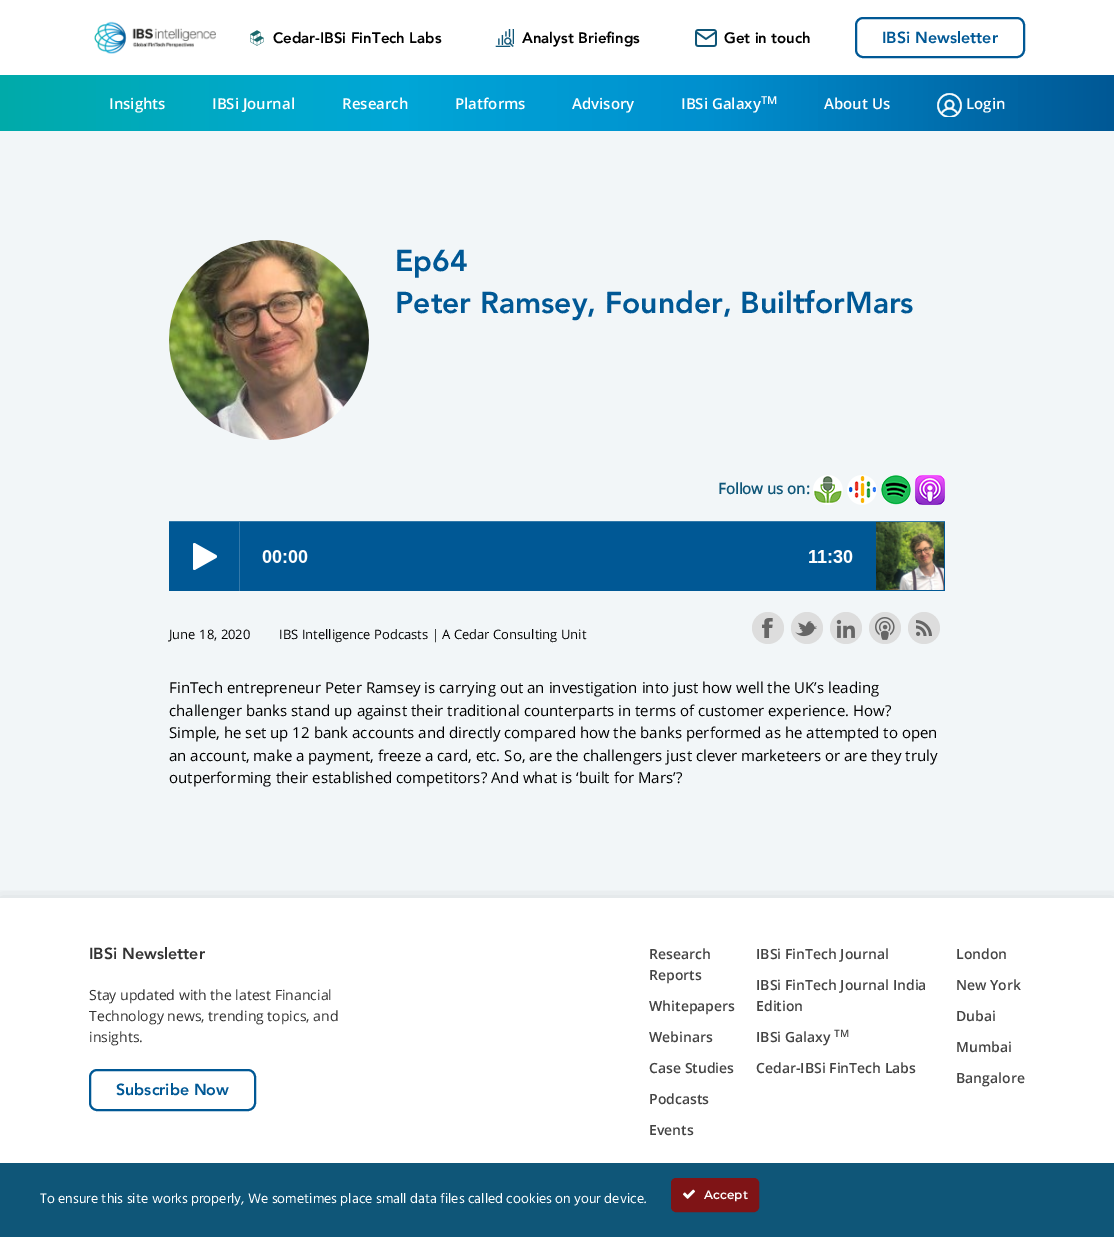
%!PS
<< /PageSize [1114 1237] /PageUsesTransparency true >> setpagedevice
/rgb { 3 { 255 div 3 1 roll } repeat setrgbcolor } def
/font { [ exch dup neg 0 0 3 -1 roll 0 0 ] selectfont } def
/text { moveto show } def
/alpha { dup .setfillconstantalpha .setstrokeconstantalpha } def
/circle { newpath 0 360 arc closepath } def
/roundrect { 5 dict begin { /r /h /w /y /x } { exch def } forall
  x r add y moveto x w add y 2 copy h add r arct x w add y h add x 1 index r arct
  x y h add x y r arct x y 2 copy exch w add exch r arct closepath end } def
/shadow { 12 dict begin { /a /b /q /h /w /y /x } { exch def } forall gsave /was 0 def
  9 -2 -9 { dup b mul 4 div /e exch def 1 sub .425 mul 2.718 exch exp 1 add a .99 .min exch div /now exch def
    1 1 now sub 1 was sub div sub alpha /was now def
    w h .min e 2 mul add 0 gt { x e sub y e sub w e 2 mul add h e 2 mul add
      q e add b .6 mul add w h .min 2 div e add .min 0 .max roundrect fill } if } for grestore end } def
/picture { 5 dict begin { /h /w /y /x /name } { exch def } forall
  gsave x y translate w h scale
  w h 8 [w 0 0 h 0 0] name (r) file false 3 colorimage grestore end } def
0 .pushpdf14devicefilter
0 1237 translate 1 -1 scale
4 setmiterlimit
255 255 255 rgb
0 0 1114 1237 rectfill
(img_01.rgb) 94 21 122 33 picture
(img_02.rgb) 250 30 14 16 picture
(img_03.rgb) 495 29 19 18 picture
(img_04.rgb) 695 29 22 18 picture
0 88 149 rgb
2 setlinewidth
856 18 168 39 7 roundrect stroke
gsave 0 75 moveto 1114 0 rlineto 0 56 rlineto -1114 0 rlineto closepath clip newpath
<< /ShadingType 2 /ColorSpace /DeviceRGB /Coords [0 103 1114 103] /Extend [true true] /Function << /FunctionType 3 /Domain [0 1] /Functions [<< /FunctionType 2 /Domain [0 1] /C0 [0 0.667 0.663] /C1 [0 0.667 0.714] /N 1 >> << /FunctionType 2 /Domain [0 1] /C0 [0 0.667 0.714] /C1 [0 0.663 0.765] /N 1 >> << /FunctionType 2 /Domain [0 1] /C0 [0 0.663 0.765] /C1 [0 0.659 0.808] /N 1 >> << /FunctionType 2 /Domain [0 1] /C0 [0 0.659 0.808] /C1 [0 0.651 0.843] /N 1 >> << /FunctionType 2 /Domain [0 1] /C0 [0 0.651 0.843] /C1 [0 0.62 0.831] /N 1 >> << /FunctionType 2 /Domain [0 1] /C0 [0 0.62 0.831] /C1 [0 0.592 0.82] /N 1 >> << /FunctionType 2 /Domain [0 1] /C0 [0 0.592 0.82] /C1 [0 0.561 0.808] /N 1 >> << /FunctionType 2 /Domain [0 1] /C0 [0 0.561 0.808] /C1 [0 0.506 0.753] /N 1 >> << /FunctionType 2 /Domain [0 1] /C0 [0 0.506 0.753] /C1 [0 0.451 0.698] /N 1 >> << /FunctionType 2 /Domain [0 1] /C0 [0 0.451 0.698] /C1 [0 0.396 0.639] /N 1 >> << /FunctionType 2 /Domain [0 1] /C0 [0 0.396 0.639] /C1 [0 0.345 0.584] /N 1 >>] /Bounds [0.09 0.18 0.27 0.36 0.45 0.55 0.64 0.73 0.82 0.91] /Encode [0 1 0 1 0 1 0 1 0 1 0 1 0 1 0 1 0 1 0 1 0 1] >> >> shfill grestore
(img_05.rgb) 937 93 25 24 picture
242 246 248 rgb
0 131 1114 767 rectfill
(img_06.rgb) 169 240 200 200 picture
(img_07.rgb) 813 475 30 30 picture
(img_08.rgb) 847 475 30 30 picture
(img_09.rgb) 881 475 30 30 picture
(img_10.rgb) 915 475 30 30 picture
(img_11.rgb) 169 521 776 70 picture
221 221 221 rgb
768 628 16 circle fill
(img_12.rgb) 762 618 11 20 picture
807 628 16 circle fill
(img_13.rgb) 795 621 22 16 picture
846 628 16 circle fill
(img_14.rgb) 836 619 19 19 picture
885 628 16 circle fill
(img_15.rgb) 875 617 20 23 picture
924 628 16 circle fill
(img_16.rgb) 916 620 16 16 picture
gsave
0 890 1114 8 rectclip
0 0 0 rgb
0 897 1114 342 0 8 0.1 shadow
grestore
0 88 149 rgb
90 1070 165 40 7 roundrect stroke
15 86 120 rgb
0 1163 1114 74 rectfill
127 20 22 rgb
671.5 1178.5 87 33 4.5 roundrect gsave fill grestore
1 setlinewidth
stroke
(img_17.rgb) 683 1189 12 10 picture
/avenir-Black 15 font
0 0 0 rgb
(Cedar-IBSi FinTech Labs) 273 43 text
(Analyst Briefings) 522 43 text
(Get in touch) 724 43 text
/avenir-Black 16 font
0 88 149 rgb
(IBSi Newsletter) 882 43 text
/OpenSans-SemiBold 15 font
255 255 255 rgb
(Insights) 109 109 text
(IBSi Journal) 212 109 text
(Research) 342 109 text
(Platforms) 455 109 text
(Advisory) 572 109 text
(IBSi Galaxy) 681 109 text
/OpenSans-SemiBold 11 font
(TM) 761 104 text
/OpenSans-SemiBold 15 font
(About Us) 824 109 text
(Login) 966 109 text
/avenir-Black 30 font
0 88 149 rgb
(Ep64) 395 271 text
(Peter Ramsey, Founder, BuiltforMars) 395 313 text
/OpenSans-Bold 15 font
15 86 120 rgb
(Follow us on:) 718 494 text
/OpenSans-Regular 13 font
0 0 0 rgb
(June 18, 2020) 169 639 text
(IBS Intelligence Podcasts | A Cedar Consulting Unit) 279 639 text
/OpenSans-Regular 15 font
(FinTech entrepreneur Peter Ramsey is carrying out an investigation into just how well the UK’s leading) 169 693 text
(challenger banks stand up against their traditional counterparts in terms of customer experience. How?) 169 716 text
(Simple, he set up 12 bank accounts and directly compared how the banks performed as he attempted to open) 169 738 text
(an account, make a payment, freeze a card, etc. So, are the challengers just clever marketeers or are they truly) 169 761 text
(outperforming their established competitors? And what is ‘built for Mars’?) 169 783 text
/avenir-Black 16 font
51 51 51 rgb
(IBSi Newsletter) 89 959 text
/OpenSans-Regular 14 font
(Stay updated with the latest Financial) 89 1000 text
(Technology news, trending topics, and) 89 1021 text
(insights.) 89 1042 text
/avenir-Black 16 font
0 88 149 rgb
(Subscribe Now) 116 1095 text
/OpenSans-SemiBold 14 font
68 68 68 rgb
(Research) 649 959 text
(Reports) 649 980 text
(Whitepapers) 649 1011 text
(Webinars) 649 1042 text
(Case Studies) 649 1073 text
(Podcasts) 649 1104 text
(Events) 649 1135 text
(IBSi FinTech Journal) 756 959 text
(IBSi FinTech Journal India) 756 990 text
(Edition) 756 1011 text
(IBSi Galaxy) 756 1042 text
/OpenSans-SemiBold 10 font
(TM) 834 1037 text
/OpenSans-SemiBold 14 font
(Cedar-IBSi FinTech Labs) 756 1073 text
(London) 956 959 text
(New York) 956 990 text
(Dubai) 956 1021 text
(Mumbai) 956 1052 text
(Bangalore) 956 1083 text
/Hind-Regular 14 font
255 255 255 rgb
(To ensure this site works properly, We sometimes place small data files called cookies on your device.) 40 1203 text
/Montserrat-SemiBold 12 font
(Accept) 704 1199 text
.poppdf14devicefilter showpage
